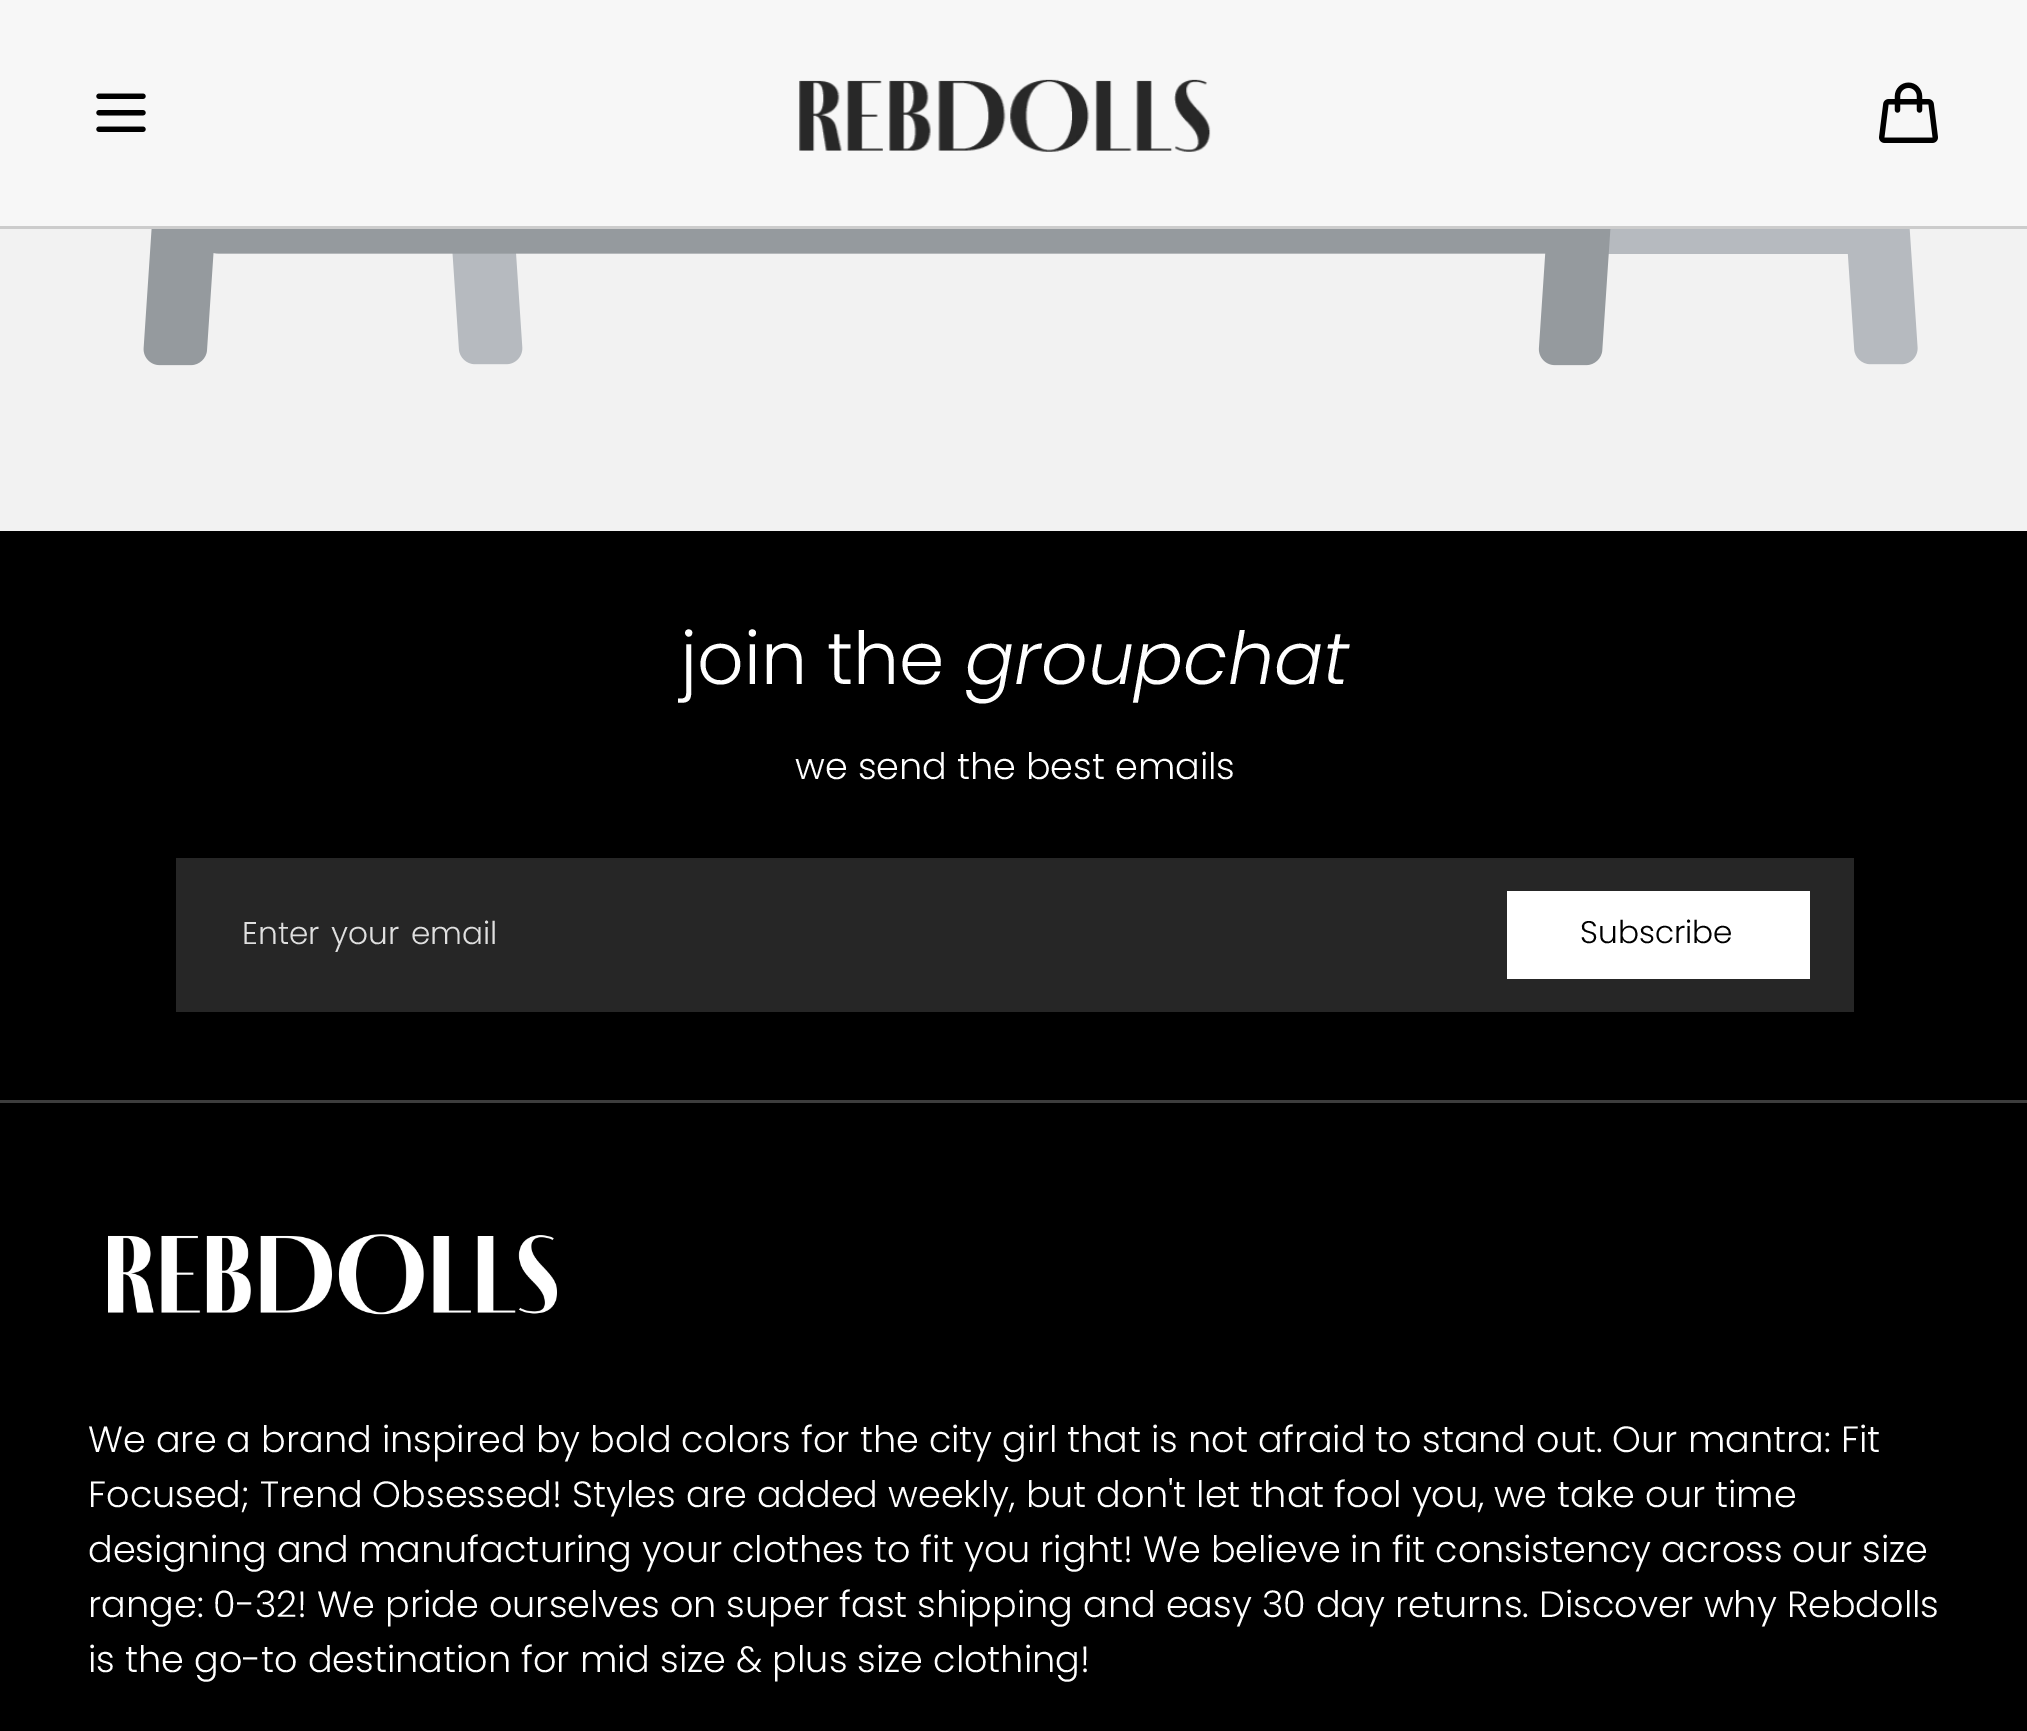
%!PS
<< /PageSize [2027 1731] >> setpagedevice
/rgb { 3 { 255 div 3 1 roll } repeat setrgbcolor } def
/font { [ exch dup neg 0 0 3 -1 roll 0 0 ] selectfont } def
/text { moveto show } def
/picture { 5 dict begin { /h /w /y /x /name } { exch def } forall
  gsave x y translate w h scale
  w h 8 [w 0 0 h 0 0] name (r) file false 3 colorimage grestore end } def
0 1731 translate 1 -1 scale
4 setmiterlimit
0 0 0 rgb
0 0 2027 1731 rectfill
247 247 247 rgb
0 0 2027 226 rectfill
204 204 204 rgb
0 226 2027 3 rectfill
(img_01.rgb) 96 93 50 39 picture
(img_02.rgb) 799 79 412 73 picture
(img_03.rgb) 1879 82 59 61 picture
(img_04.rgb) 0 229 2027 302 picture
38 38 38 rgb
176 858 1678 154 rectfill
255 255 255 rgb
1507 891 303 88 rectfill
61 61 61 rgb
0 1100 2027 3 rectfill
(img_05.rgb) 108 1234 449 81 picture
/Poppins-Light 73 font
255 255 255 rgb
(join the) 680 684 text
/Poppins-LightItalic 73 font
(groupchat) 965 684 text
/Poppins-Light 36.58 font
(we send the best emails) 795 779 text
/Poppins-Light 31.25 font
223 223 223 rgb
242 944 moveto 3 0 32 (Enter your email) widthshow
0 0 0 rgb
(Subscribe) 1580 943 text
/Poppins-Light 36.58 font
255 255 255 rgb
(We are a brand inspired by bold colors for the city girl that is not afraid to stand out. Our mantra: Fit) 88 1452 text
(Focused; Trend Obsessed! Styles are added weekly, but don't let that fool you, we take our time) 88 1507 text
(designing and manufacturing your clothes to fit you right! We believe in fit consistency across our size) 88 1562 text
(range: 0-32! We pride ourselves on super fast shipping and easy 30 day returns. Discover why Rebdolls) 88 1617 text
(is the go-to destination for mid size & plus size clothing!) 88 1672 text
showpage
